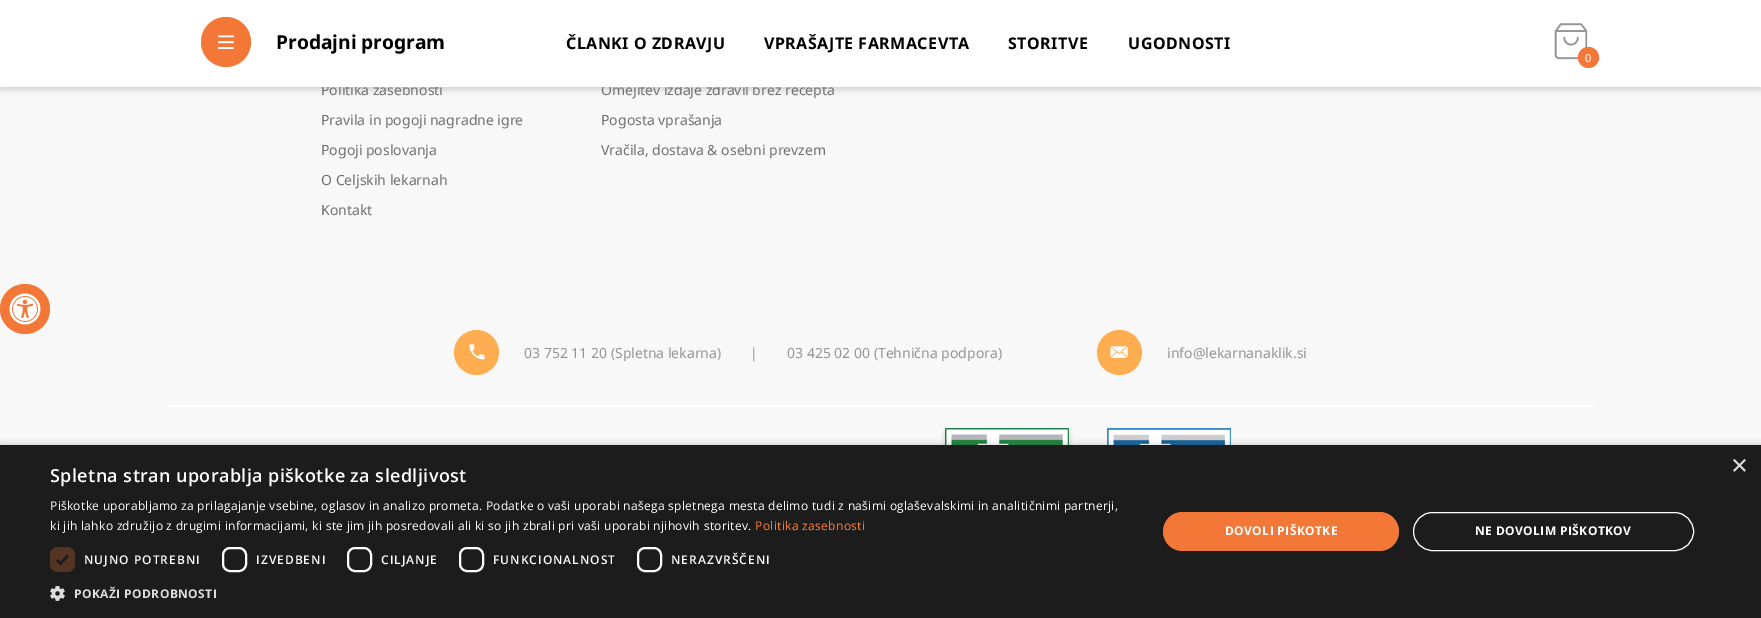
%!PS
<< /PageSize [1761 618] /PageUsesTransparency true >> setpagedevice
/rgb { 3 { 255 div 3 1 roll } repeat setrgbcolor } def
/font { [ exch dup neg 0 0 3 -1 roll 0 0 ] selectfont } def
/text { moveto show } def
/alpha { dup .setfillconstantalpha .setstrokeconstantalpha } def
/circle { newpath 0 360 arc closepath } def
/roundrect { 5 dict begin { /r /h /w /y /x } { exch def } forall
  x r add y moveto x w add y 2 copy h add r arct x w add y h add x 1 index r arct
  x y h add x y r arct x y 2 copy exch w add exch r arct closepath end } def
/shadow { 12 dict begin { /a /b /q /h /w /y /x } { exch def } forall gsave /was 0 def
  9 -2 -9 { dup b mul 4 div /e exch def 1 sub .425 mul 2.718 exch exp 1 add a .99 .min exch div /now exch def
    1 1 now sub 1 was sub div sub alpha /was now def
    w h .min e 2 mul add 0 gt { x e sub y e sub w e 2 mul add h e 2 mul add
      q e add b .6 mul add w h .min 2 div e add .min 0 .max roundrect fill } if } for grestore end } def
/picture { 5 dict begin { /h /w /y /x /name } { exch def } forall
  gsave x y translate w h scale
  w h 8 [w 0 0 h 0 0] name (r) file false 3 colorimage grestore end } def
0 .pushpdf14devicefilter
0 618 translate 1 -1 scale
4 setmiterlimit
248 248 248 rgb
0 0 1761 618 rectfill
0 0 0 rgb
0 -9 1761 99 0 3 0.16 shadow
243 119 54 rgb
25 309 25 circle fill
(img_03.rgb) 9 293 32 32 picture
254 174 81 rgb
476.5 352.5 22.5 circle fill
(img_04.rgb) 469 344 16 16 picture
1119.5 352.5 22.5 circle fill
(img_05.rgb) 1110 346 18 12 picture
255 255 255 rgb
166 405 1430 2 rectfill
(img_06.rgb) 941 427 132 18 picture
(img_07.rgb) 1107 428 124 17 picture
0 0 0 rgb
1 447 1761 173 0 4 0.35 shadow
28 28 28 rgb
0 445 1761 173 rectfill
84 52 35 rgb
50 547 25 25 8 roundrect fill
28 28 28 rgb
2.6 setlinewidth
57 560 moveto 3.5 3.5 rlineto 7.5 -8 rlineto stroke
255 255 255 rgb
2 setlinewidth
223 548 23 23 7 roundrect stroke
348 548 23 23 7 roundrect stroke
460 548 23 23 7 roundrect stroke
638 548 23 23 7 roundrect stroke
(img_08.rgb) 50 586 15 15 picture
243 119 54 rgb
1163 512 236 39 19.5 roundrect fill
255 255 255 rgb
1 setlinewidth
1413.5 512.5 280 38 19 roundrect stroke
/NotoSans-Regular 14 font
112 112 112 rgb
(Politika zasebnosti) 321 95 text
(Pravila in pogoji nagradne igre) 321 125 text
(Pogoji poslovanja) 321 155 text
(O Celjskih lekarnah) 321 185 text
(Kontakt) 321 215 text
(Omejitev izdaje zdravil brez recepta) 601 95 text
255 255 255 rgb
0 0 1761 87 rectfill
(img_02.rgb) 1554 23 34 37 picture
243 119 54 rgb
1588.5 57.5 10.5 circle fill
/NotoSans-Regular 11 font
255 255 255 rgb
(0) 1585 62 text
/NotoSans-Bold 16 font
0 0 0 rgb
1128 49 moveto 0.5 0 (UGODNOSTI) ashow
1008 49 moveto 0.5 0 (STORITVE) ashow
764 49 moveto 0.5 0 (VPRAŠAJTE FARMACEVTA) ashow
566 49 moveto 0.5 0 (ČLANKI O ZDRAVJU) ashow
/NotoSans-Bold 19.25 font
(Prodajni program) 276 49 text
243 119 54 rgb
226 42 25 circle fill
(img_01.rgb) 218 35 16 14 picture
/NotoSans-Regular 14 font
112 112 112 rgb
(Pogosta vprašanja) 601 125 text
(Vračila, dostava & osebni prevzem) 601 155 text
149 149 149 rgb
(03 752 11 20 \(Spletna lekarna\)) 524 358 text
(|) 750 358 text
(03 425 02 00 \(Tehnična podpora\)) 787 358 text
(info@lekarnanaklik.si) 1167 358 text
/LiberationSans-Regular 29 font
221 221 221 rgb
(×) 1731 475 text
/OpenSans-SemiBold 18 font
255 255 255 rgb
50 482 moveto 0.4 0 (Spletna stran uporablja piškotke za sledljivost) ashow
/OpenSans-Regular 12 font
50 510 moveto 0.3 0 (Piškotke uporabljamo za prilagajanje vsebine, oglasov in analizo prometa. Podatke o vaši uporabi našega spletnega mesta delimo tudi z našimi oglaševalskimi in analitičnimi partnerji,) ashow
50 530 moveto 0.3 0 (ki jih lahko združijo z drugimi informacijami, ki ste jim jih posredovali ali ki so jih zbrali pri vaši uporabi njihovih storitev.) ashow
/NotoSans-Regular 12 font
243 119 54 rgb
755 530 moveto 0.3 0 (Politika zasebnosti) ashow
/OpenSans-SemiBold 12 font
255 255 255 rgb
84 564 moveto 1 0 (NUJNO POTREBNI) ashow
256 564 moveto 1 0 (IZVEDBENI) ashow
381 564 moveto 1 0 (CILJANJE) ashow
493 564 moveto 1 0 (FUNKCIONALNOST) ashow
671 564 moveto 1 0 (NERAZVRŠČENI) ashow
/OpenSans-Bold 12 font
221 221 221 rgb
74 598 moveto 0.4 0 (POKAŽI PODROBNOSTI) ashow
255 255 255 rgb
1225 535 moveto 0.4 0 (DOVOLI PIŠKOTKE) ashow
1475 535 moveto 0.4 0 (NE DOVOLIM PIŠKOTKOV) ashow
.poppdf14devicefilter showpage
